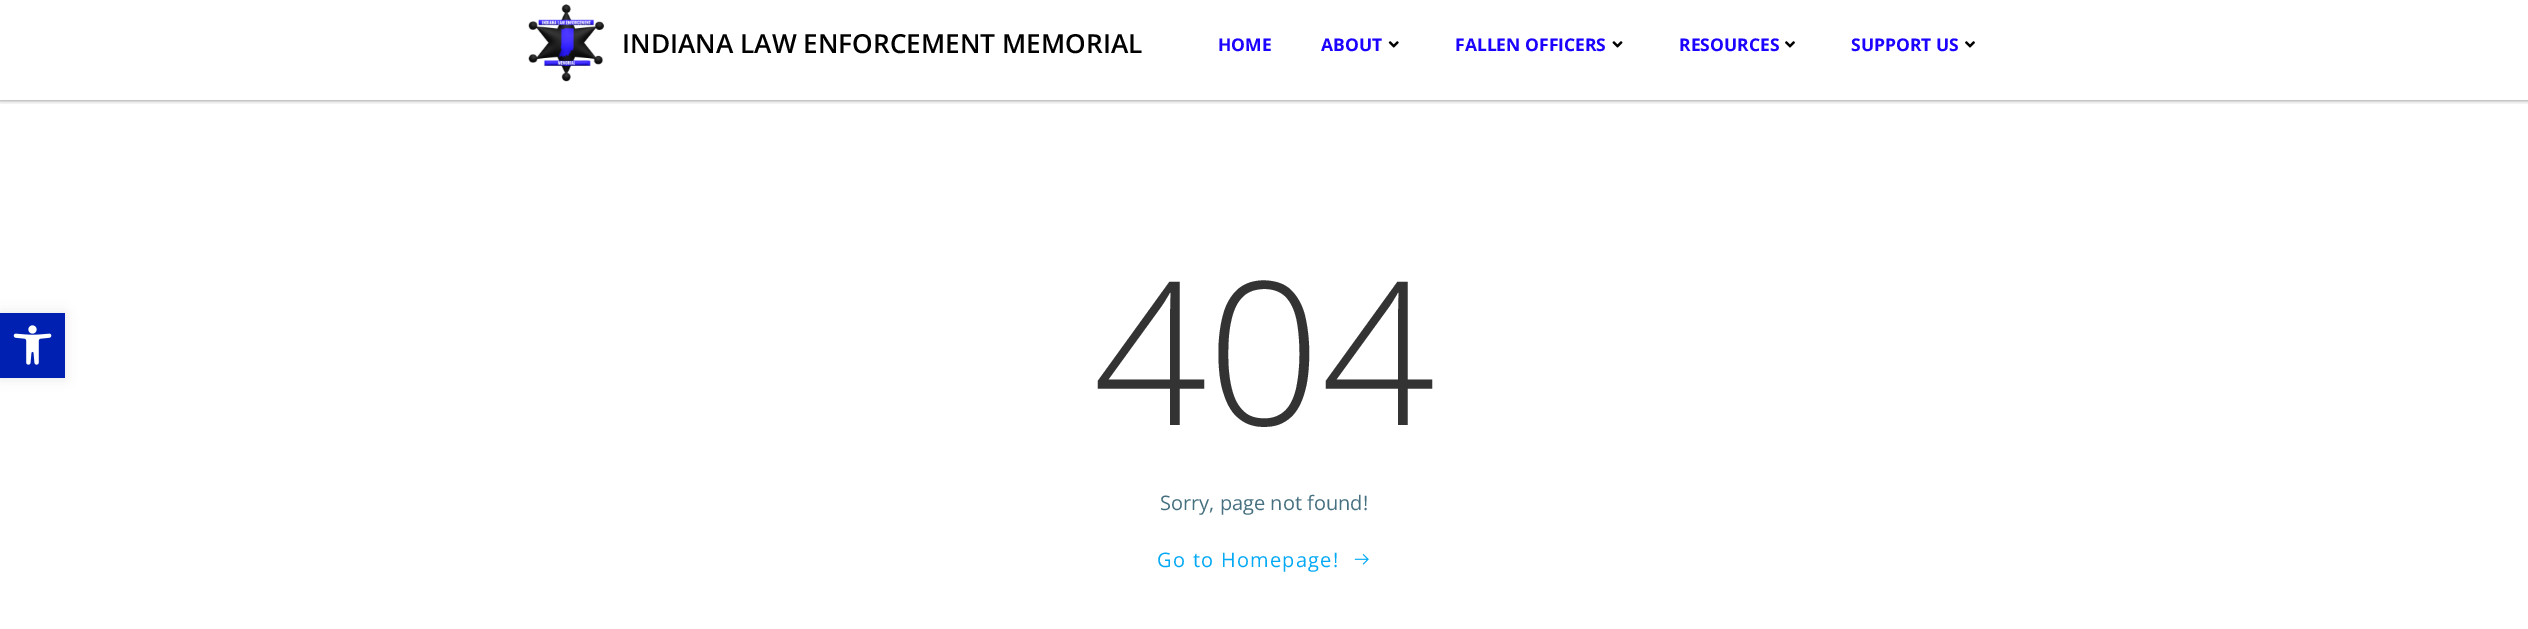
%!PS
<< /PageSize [2528 629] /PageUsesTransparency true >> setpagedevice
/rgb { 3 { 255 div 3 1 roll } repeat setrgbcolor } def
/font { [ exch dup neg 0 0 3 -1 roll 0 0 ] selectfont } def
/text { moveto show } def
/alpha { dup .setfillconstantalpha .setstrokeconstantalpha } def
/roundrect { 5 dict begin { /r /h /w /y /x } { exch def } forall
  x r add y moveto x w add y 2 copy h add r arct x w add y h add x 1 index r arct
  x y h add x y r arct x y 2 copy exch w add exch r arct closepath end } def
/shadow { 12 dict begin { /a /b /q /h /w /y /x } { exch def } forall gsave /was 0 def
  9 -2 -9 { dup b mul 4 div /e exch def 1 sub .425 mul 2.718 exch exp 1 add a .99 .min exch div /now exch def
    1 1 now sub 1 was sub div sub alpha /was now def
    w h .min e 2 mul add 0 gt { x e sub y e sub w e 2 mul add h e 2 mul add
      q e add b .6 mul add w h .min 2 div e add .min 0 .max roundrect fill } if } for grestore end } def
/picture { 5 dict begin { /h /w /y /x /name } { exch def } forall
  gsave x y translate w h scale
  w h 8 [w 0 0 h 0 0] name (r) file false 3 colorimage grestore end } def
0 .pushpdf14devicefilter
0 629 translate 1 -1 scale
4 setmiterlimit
255 255 255 rgb
0 0 2528 629 rectfill
0 0 0 rgb
0 313 65 65 0 6 0.1 shadow
0 32 178 rgb
0 313 65 65 rectfill
(img_01.rgb) 13 325 39 40 picture
gsave
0 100 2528 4 rectclip
0 0 0 rgb
0 0 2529 100 0 2.5 0.5 shadow
grestore
(img_02.rgb) 528 4 77 78 picture
(img_03.rgb) 1388 41 11 7 picture
(img_04.rgb) 1612 41 11 7 picture
(img_05.rgb) 1785 41 10 7 picture
(img_05.rgb) 1965 41 10 7 picture
(img_06.rgb) 1354 554 15 11 picture
/OpenSans-SemiBold 26.25 font
0 0 0 rgb
(INDIANA LAW ENFORCEMENT MEMORIAL) 622 53 text
/OpenSans-Bold 17.5 font
27 3 255 rgb
(HOME) 1218 51 text
(ABOUT) 1321 51 text
(FALLEN OFFICERS) 1455 51 text
(RESOURCES) 1679 51 text
(SUPPORT US) 1851 51 text
/OpenSans-Light 200 font
51 51 51 rgb
(404) 1093 425 text
/OpenSans-Regular 20 font
70 112 127 rgb
(Sorry, page not found!) 1160 510 text
3 169 244 rgb
1157 567 moveto 1.25 0 (Go to Homepage!) ashow
.poppdf14devicefilter showpage
